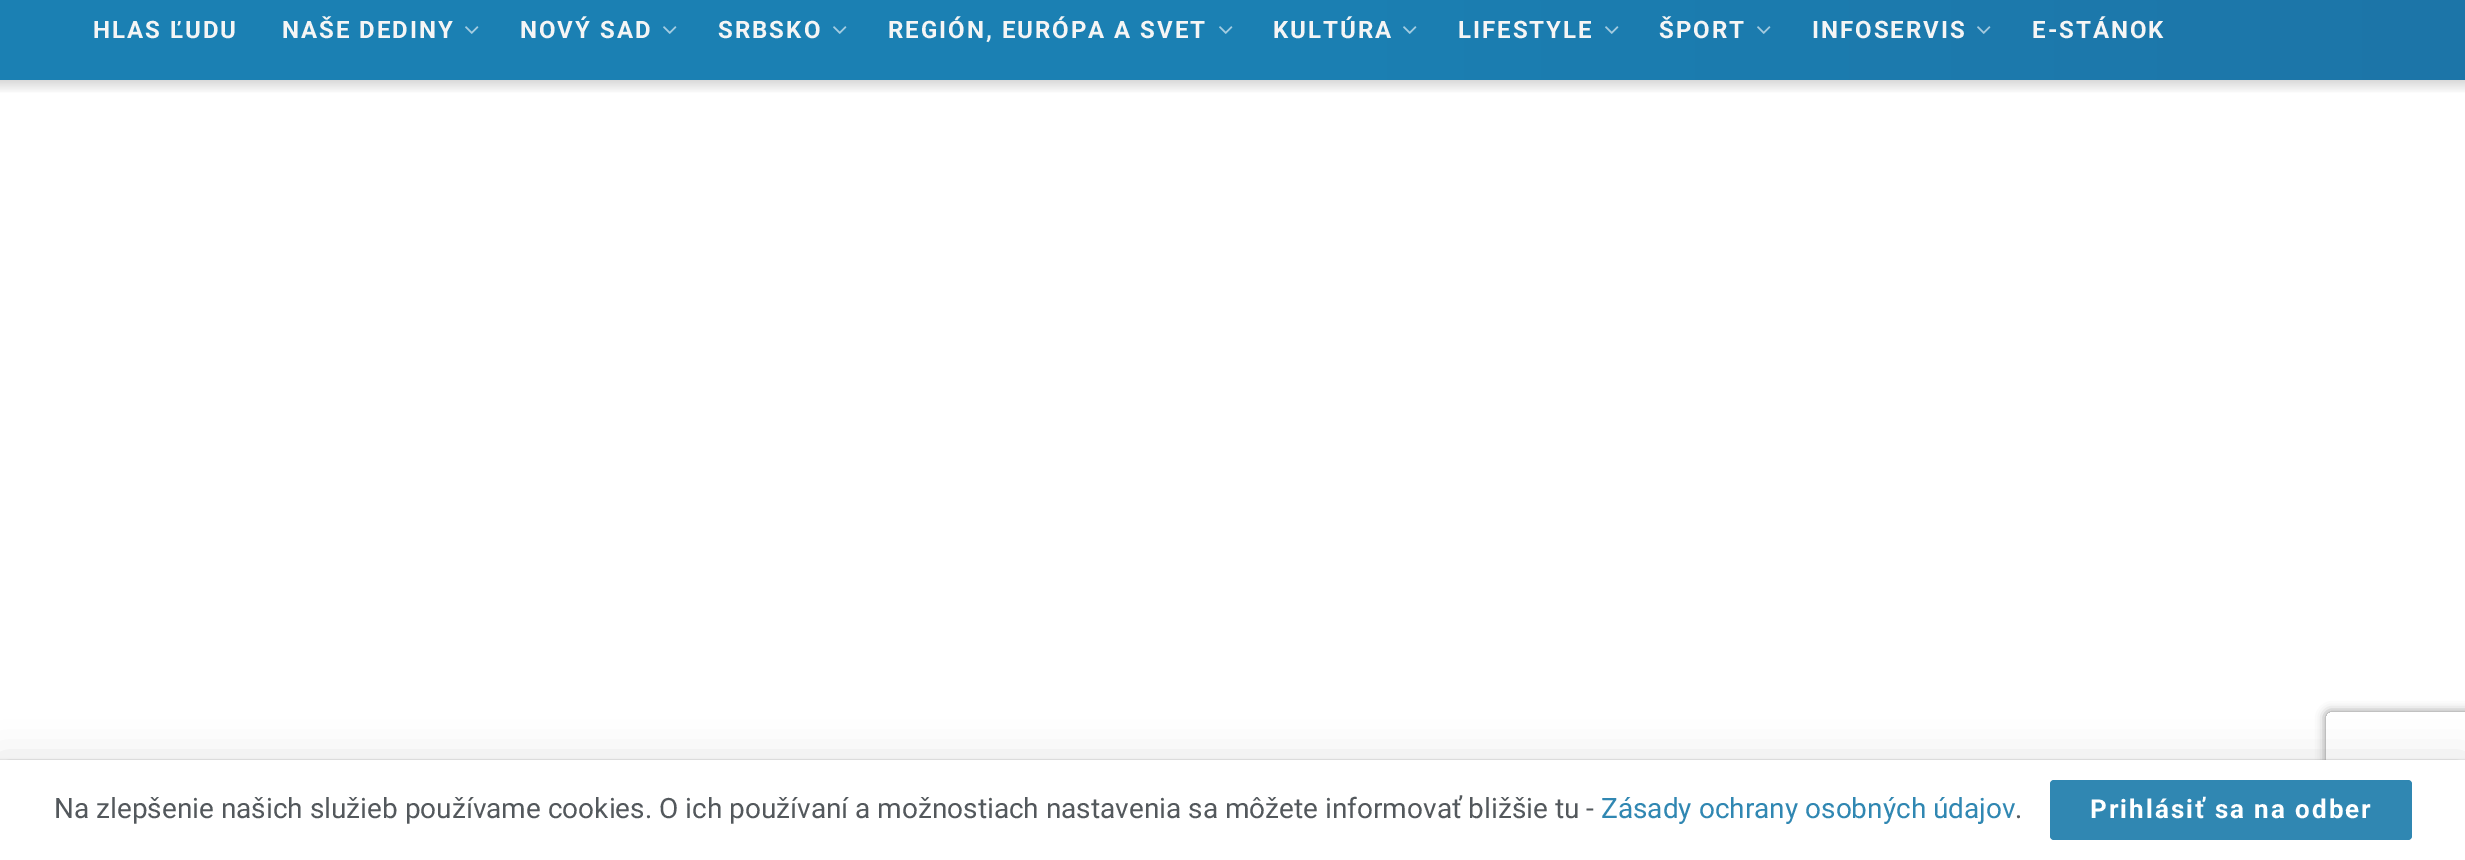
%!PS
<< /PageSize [2465 860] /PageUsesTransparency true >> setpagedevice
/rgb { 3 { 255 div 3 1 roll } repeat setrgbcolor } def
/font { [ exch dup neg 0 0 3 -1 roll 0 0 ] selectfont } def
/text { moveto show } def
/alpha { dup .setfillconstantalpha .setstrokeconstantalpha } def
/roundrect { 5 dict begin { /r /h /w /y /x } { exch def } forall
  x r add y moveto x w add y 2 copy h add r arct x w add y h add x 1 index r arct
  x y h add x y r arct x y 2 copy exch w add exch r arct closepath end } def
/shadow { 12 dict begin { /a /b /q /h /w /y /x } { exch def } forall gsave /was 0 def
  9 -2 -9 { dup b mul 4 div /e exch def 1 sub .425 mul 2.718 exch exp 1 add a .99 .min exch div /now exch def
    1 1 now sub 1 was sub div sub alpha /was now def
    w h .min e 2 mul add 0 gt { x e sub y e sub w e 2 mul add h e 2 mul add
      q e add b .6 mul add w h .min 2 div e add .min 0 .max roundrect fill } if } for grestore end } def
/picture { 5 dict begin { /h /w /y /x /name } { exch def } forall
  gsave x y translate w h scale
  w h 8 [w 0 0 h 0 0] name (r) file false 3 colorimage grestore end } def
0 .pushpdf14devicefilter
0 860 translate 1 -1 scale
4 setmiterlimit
255 255 255 rgb
0 0 2465 860 rectfill
gsave 0 0 moveto 2465 0 rlineto 0 80 rlineto -2465 0 rlineto closepath clip newpath
<< /ShadingType 2 /ColorSpace /DeviceRGB /Coords [0 30 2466 30] /Extend [true true] /Function << /FunctionType 3 /Domain [0 1] /Functions [<< /FunctionType 2 /Domain [0 1] /C0 [0.106 0.502 0.702] /C1 [0.106 0.502 0.702] /N 1 >> << /FunctionType 2 /Domain [0 1] /C0 [0.106 0.502 0.702] /C1 [0.11 0.459 0.659] /N 1 >>] /Bounds [0.51] /Encode [0 1 0 1] >> >> shfill grestore
(img_01.rgb) 465 26 14 8 picture
(img_01.rgb) 663 26 14 8 picture
(img_01.rgb) 833 26 14 8 picture
(img_01.rgb) 1219 26 14 8 picture
(img_02.rgb) 1403 26 14 8 picture
(img_03.rgb) 1605 26 14 8 picture
(img_04.rgb) 1757 26 14 8 picture
(img_05.rgb) 1977 26 14 8 picture
gsave 0 80 moveto 2465 0 rlineto 0 13 rlineto -2465 0 rlineto closepath clip newpath
<< /ShadingType 2 /ColorSpace /DeviceRGB /Coords [1233 80 1233 94] /Extend [true true] /Function << /FunctionType 2 /Domain [0 1] /C0 [0.851 0.851 0.851] /C1 [1 1 1] /N 1 >> >> shfill grestore
0 0 0 rgb
0 764 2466 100 0 20 0.15 shadow
0 760 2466 100 0 1 0.2 shadow
gsave
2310 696 moveto 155 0 rlineto 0 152 rlineto -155 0 rlineto closepath 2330 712 moveto 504 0 rlineto 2 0 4 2 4 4 rcurveto 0 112 rlineto 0 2 -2 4 -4 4 rcurveto -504 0 rlineto -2 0 -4 -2 -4 -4 rcurveto 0 -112 rlineto 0 -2 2 -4 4 -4 rcurveto closepath eoclip newpath
128 128 128 rgb
2326 712 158 120 4 5 1 shadow
grestore
255 255 255 rgb
0 760 2465 100 rectfill
48 135 178 rgb
2050 780 362 60 4 roundrect fill
/Roboto-Bold 24 font
245 245 245 rgb
93 38 moveto 2 0 (HLAS ĽUDU) ashow
282 38 moveto 2 0 (NAŠE DEDINY) ashow
520 38 moveto 2 0 (NOVÝ SAD) ashow
718 38 moveto 2 0 (SRBSKO) ashow
888 38 moveto 2 0 (REGIÓN, EURÓPA A SVET) ashow
1273 38 moveto 2 0 (KULTÚRA) ashow
1458 38 moveto 2 0 (LIFESTYLE) ashow
1659 38 moveto 2 0 (ŠPORT) ashow
1812 38 moveto 2 0 (INFOSERVIS) ashow
2032 38 moveto 2 0 (E-STÁNOK) ashow
/Roboto-Regular 28 font
83 88 92 rgb
(Na zlepšenie našich služieb používame cookies. O ich používaní a možnostiach nastavenia sa môžete informovať bližšie tu -) 54 818 text
48 135 178 rgb
(Zásady ochrany osobných údajov) 1601 818 text
83 88 92 rgb
(.) 2015 818 text
/Roboto-Bold 26 font
255 255 255 rgb
2090 818 moveto 2 0 (Prihlásiť sa na odber) ashow
.poppdf14devicefilter showpage
